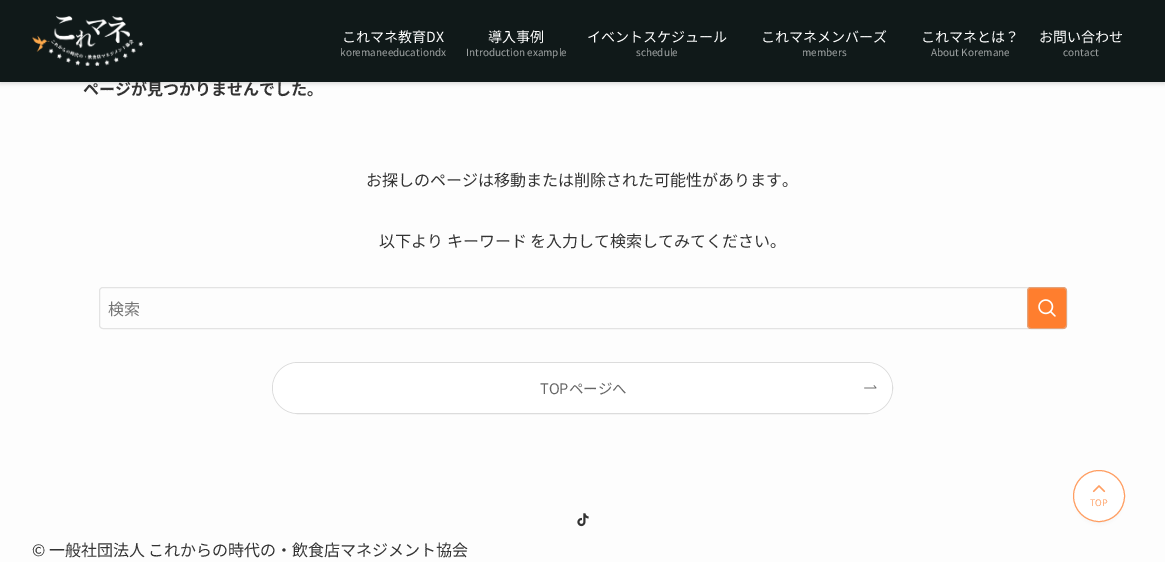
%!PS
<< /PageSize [1165 562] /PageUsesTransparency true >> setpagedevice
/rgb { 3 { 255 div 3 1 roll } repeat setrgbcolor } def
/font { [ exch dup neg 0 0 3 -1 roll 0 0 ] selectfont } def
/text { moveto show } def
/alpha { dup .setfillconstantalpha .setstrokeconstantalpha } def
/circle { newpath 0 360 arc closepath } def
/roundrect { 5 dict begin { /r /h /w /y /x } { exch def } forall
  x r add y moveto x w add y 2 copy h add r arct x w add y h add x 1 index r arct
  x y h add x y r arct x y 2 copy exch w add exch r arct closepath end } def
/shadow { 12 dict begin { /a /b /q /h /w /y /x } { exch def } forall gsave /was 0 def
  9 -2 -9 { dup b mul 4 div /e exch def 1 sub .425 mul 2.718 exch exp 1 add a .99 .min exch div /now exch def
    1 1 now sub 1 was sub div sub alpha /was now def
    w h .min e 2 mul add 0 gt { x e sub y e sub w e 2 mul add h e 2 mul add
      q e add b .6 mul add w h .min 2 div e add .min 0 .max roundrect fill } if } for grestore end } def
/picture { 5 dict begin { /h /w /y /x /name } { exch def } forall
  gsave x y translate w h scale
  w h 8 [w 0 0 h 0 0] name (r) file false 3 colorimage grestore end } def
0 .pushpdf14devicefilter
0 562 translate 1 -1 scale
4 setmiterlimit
253 253 253 rgb
0 0 1165 562 rectfill
0 0 0 rgb
0 2 1165 82 0 2 0.12 shadow
227 227 227 rgb
99.5 287.5 967 41 3.5 roundrect stroke
255 126 46 rgb
1027 287 40 42 4 roundrect fill
0.5 alpha
199 199 199 rgb
1027.5 287.5 39 41 3.5 roundrect stroke
1 alpha
(img_02.rgb) 1038 299 18 18 picture
220 220 220 rgb
272.5 362.5 620 51 25.5 roundrect stroke
255 255 255 rgb
273 363 619 50 25 roundrect fill
(img_03.rgb) 864 385 13 4 picture
63 63 63 rgb
1077 478 44 44 22 2 0.1 shadow
255 255 255 rgb
1099 496 25.5 circle gsave fill grestore
255 158 98 rgb
stroke
(img_04.rgb) 1092 485 14 8 picture
(img_05.rgb) 577 513 12 14 picture
/NotoSansJP-Bold 16 font
51 51 51 rgb
(ページが見つかりませんでした。) 83 95 text
16 25 25 rgb
0 0 1165 82 rectfill
/NotoSansJP-Regular 14 font
255 255 255 rgb
(お問い合わせ) 1039 42 text
(これマネとは？) 921 42 text
(これマネメンバーズ) 761 42 text
(イベントスケジュール) 587 42 text
(導入事例) 488 42 text
(これマネ教育DX) 342 42 text
/NotoSansJP-Regular 10 font
159 163 163 rgb
(contact) 1063 56 text
(About Koremane) 931 56 text
(members) 802 56 text
(schedule) 636 56 text
(Introduction example) 466 56 text
(koremaneeducationdx) 340 56 text
(img_01.rgb) 32 16 111 50 picture
/NotoSansJP-Regular 16 font
51 51 51 rgb
(お探しのページは移動または削除された可能性があります。) 366 186 text
(以下より キーワード を入力して検索してみてください。) 379 247 text
117 117 117 rgb
(検索) 108 315 text
/NotoSansJP-Regular 14.5 font
102 102 102 rgb
(TOPページへ) 540 394 text
/NotoSansJP-Regular 9 font
255 158 98 rgb
(TOP) 1090 506 text
/NotoSansJP-Regular 16 font
51 51 51 rgb
(© 一般社団法人 これからの時代の・飲食店マネジメント協会) 32 556 text
.poppdf14devicefilter showpage
